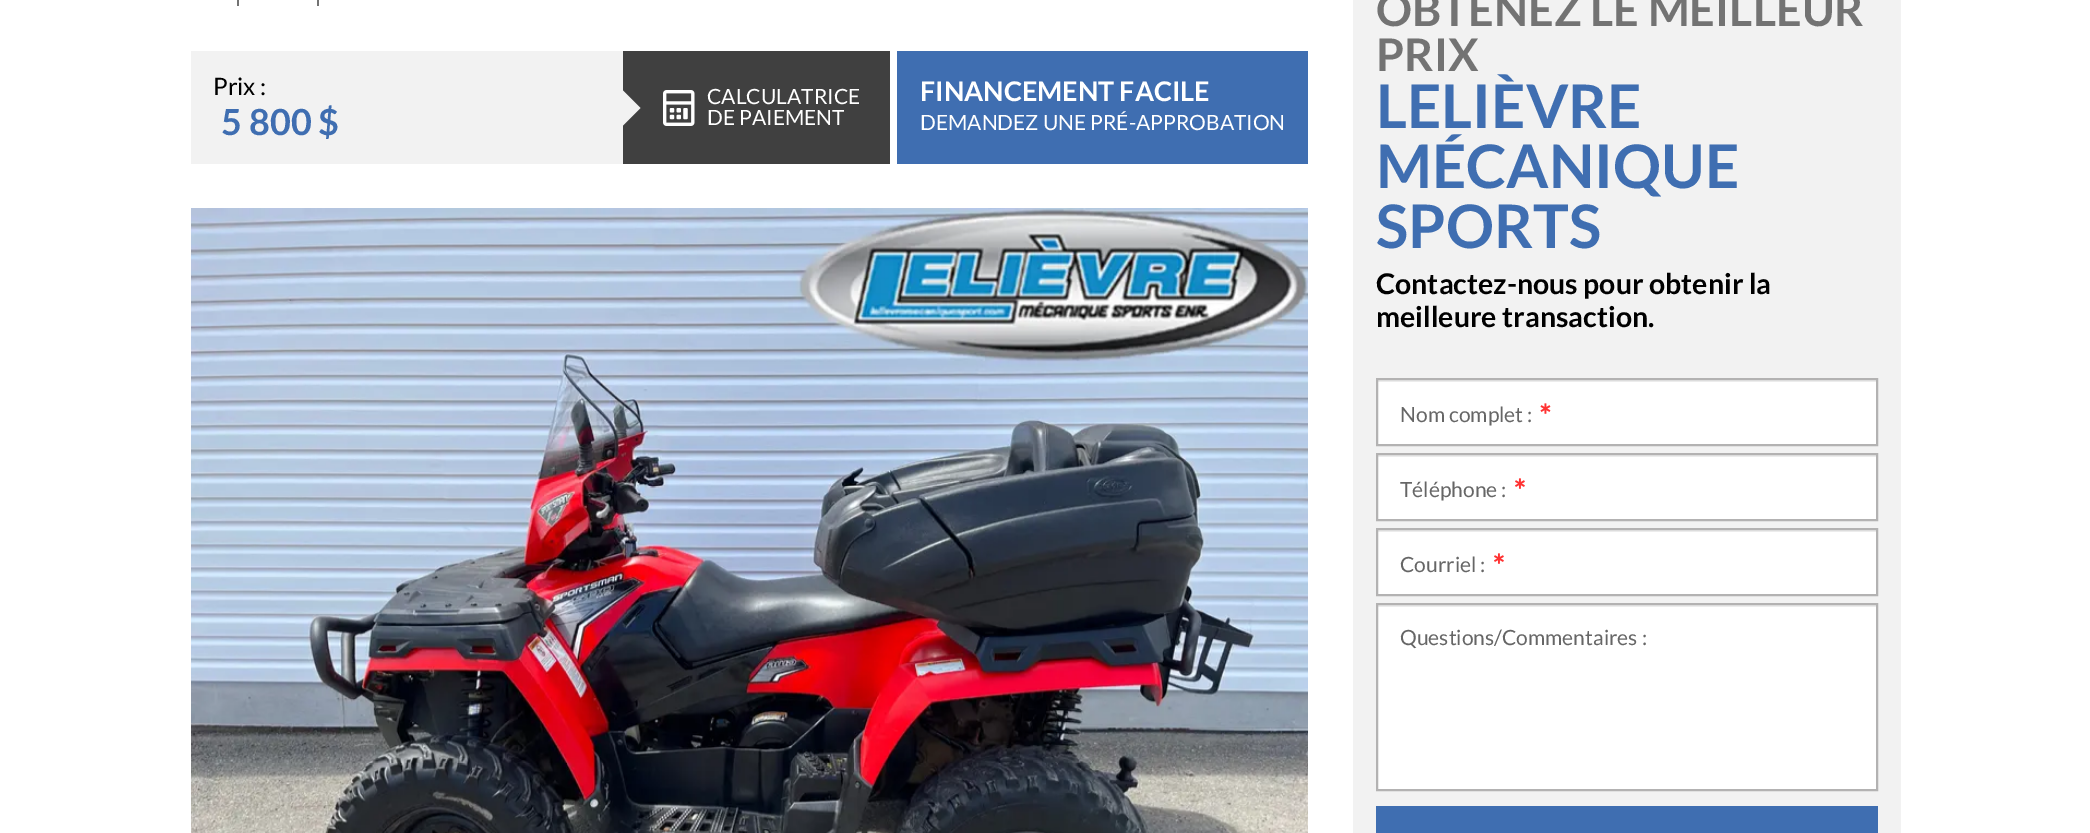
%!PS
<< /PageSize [2090 833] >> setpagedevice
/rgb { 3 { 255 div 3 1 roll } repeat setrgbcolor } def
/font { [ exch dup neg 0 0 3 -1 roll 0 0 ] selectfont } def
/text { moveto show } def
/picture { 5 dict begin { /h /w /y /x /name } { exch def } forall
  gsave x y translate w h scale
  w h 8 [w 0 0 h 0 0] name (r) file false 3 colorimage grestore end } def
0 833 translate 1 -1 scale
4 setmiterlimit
255 255 255 rgb
0 0 2090 833 rectfill
115 115 115 rgb
237 0 2 6 rectfill
317 0 2 6 rectfill
242 242 242 rgb
191 51 432 113 rectfill
64 64 64 rgb
623 51 267 113 rectfill
242 242 242 rgb
622.5 126 moveto 0 -36 rlineto 18 18 rlineto closepath fill
(img_01.rgb) 663 90 32 36 picture
63 110 177 rgb
897 51 411 113 rectfill
(img_02.rgb) 191 208 1117 625 picture
242 242 242 rgb
1353 0 548 833 rectfill
255 255 255 rgb
1378 382 498 62 rectfill
236 236 236 rgb
1377 380 500 2 rectfill
179 178 178 rgb
2 setlinewidth
1377 379 500 66 rectstroke
(img_03.rgb) 1540 403 11 11 picture
255 255 255 rgb
1378 457 498 62 rectfill
236 236 236 rgb
1377 455 500 2 rectfill
179 178 178 rgb
1377 454 500 66 rectstroke
(img_04.rgb) 1515 478 10 11 picture
255 255 255 rgb
1378 532 498 62 rectfill
236 236 236 rgb
1377 530 500 2 rectfill
179 178 178 rgb
1377 529 500 66 rectstroke
(img_04.rgb) 1494 553 10 11 picture
255 255 255 rgb
1378 607 498 182 rectfill
236 236 236 rgb
1377 605 500 2 rectfill
179 178 178 rgb
1377 604 500 186 rectstroke
63 110 177 rgb
1376 806 502 27 rectfill
/Lato-Regular 24 font
0 0 0 rgb
(Prix :) 213 95 text
/Lato-Bold 36 font
63 110 177 rgb
(5 800 $) 221 135 text
/Lato-Regular 21 font
255 255 255 rgb
(CALCULATRICE) 707 104 text
(DE PAIEMENT) 707 125 text
/Lato-Bold 27 font
(FINANCEMENT FACILE) 920 101 text
/Lato-Regular 21 font
(DEMANDEZ UNE PRÉ-APPROBATION) 920 130 text
/Lato-Bold 45 font
115 115 115 rgb
(OBTENEZ LE MEILLEUR) 1376 26 text
(PRIX) 1376 71 text
/Lato-Bold 60 font
63 110 177 rgb
(LELIÈVRE) 1376 128 text
(MÉCANIQUE) 1376 188 text
(SPORTS) 1376 248 text
/Lato-Bold 28.5 font
0 0 0 rgb
(Contactez-nous pour obtenir la) 1376 294 text
(meilleure transaction.) 1376 327 text
/Lato-Regular 21 font
102 102 102 rgb
(Nom complet :) 1400 422 text
(Téléphone :) 1400 497 text
(Courriel :) 1400 572 text
(Questions/Commentaires :) 1400 645 text
showpage
